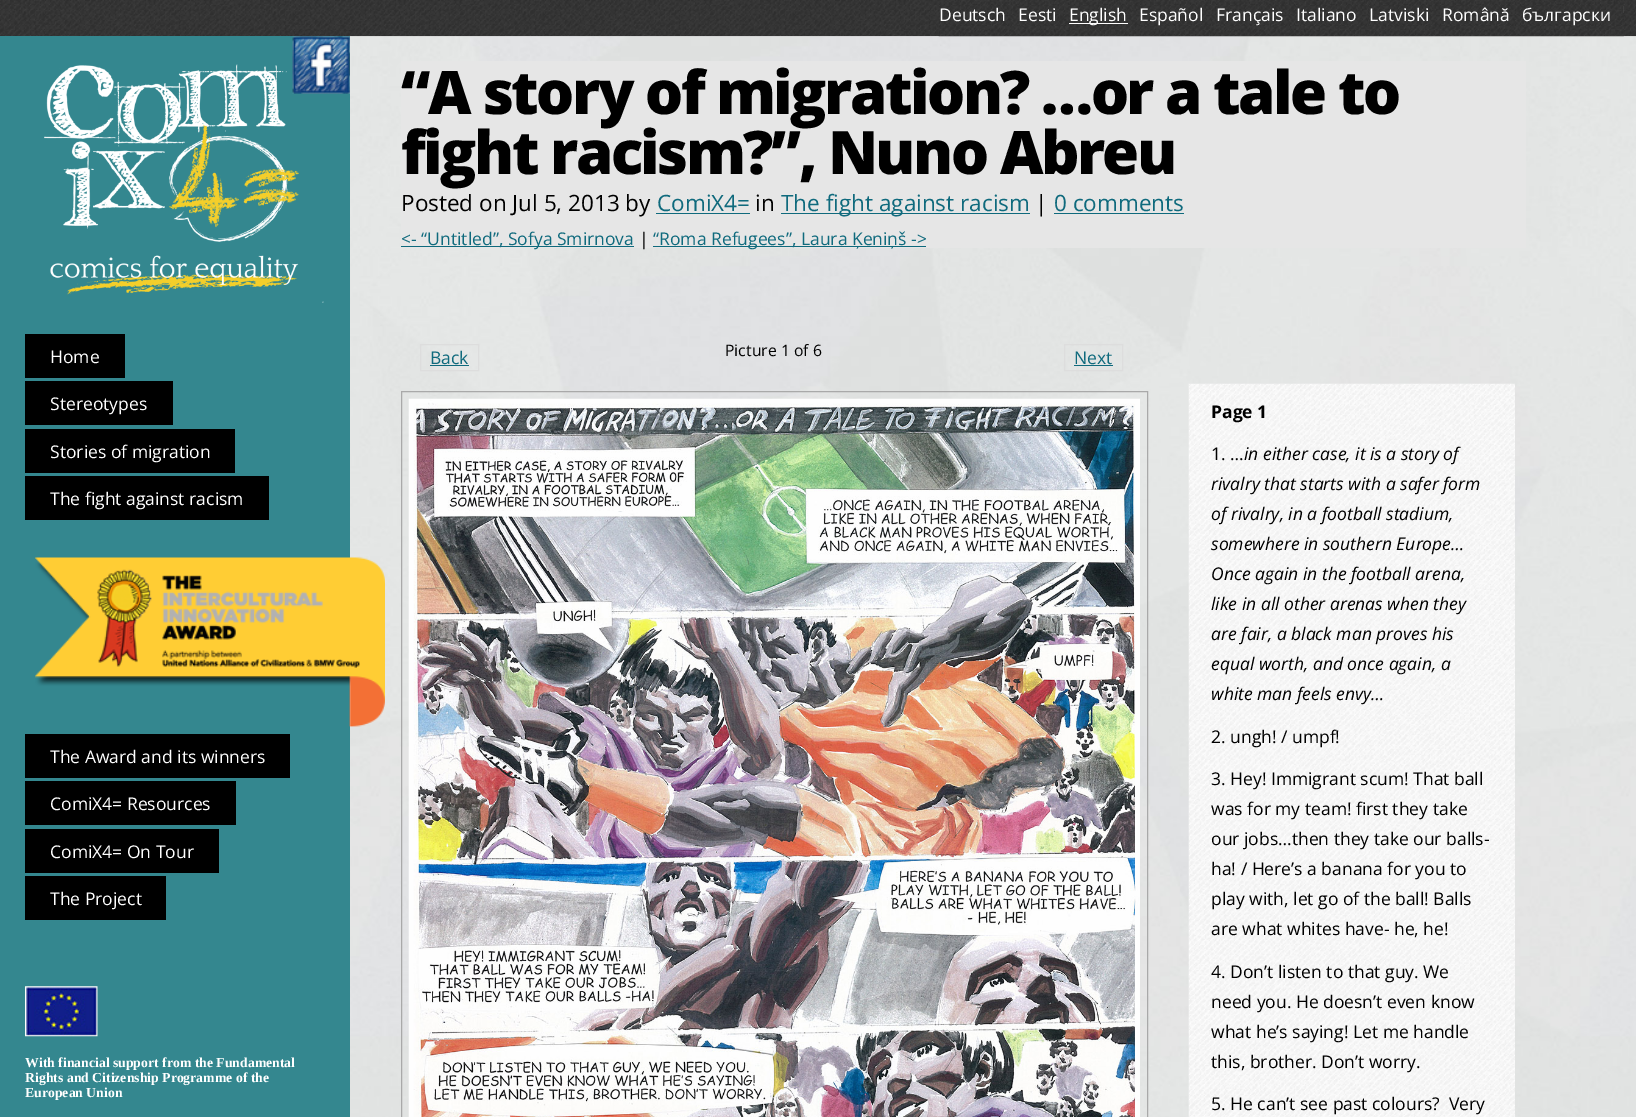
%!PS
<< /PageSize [1636 1117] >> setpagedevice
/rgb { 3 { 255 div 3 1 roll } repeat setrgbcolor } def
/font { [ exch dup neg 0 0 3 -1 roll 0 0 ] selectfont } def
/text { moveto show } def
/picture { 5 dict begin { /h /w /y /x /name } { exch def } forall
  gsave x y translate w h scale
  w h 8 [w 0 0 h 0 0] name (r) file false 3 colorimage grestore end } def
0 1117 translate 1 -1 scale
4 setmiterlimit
255 255 255 rgb
0 0 1636 1117 rectfill
(img_01.rgb) 350 36 1286 1 picture
(img_02.rgb) 0 0 1636 37 picture
(img_03.rgb) 938 0 686 37 picture
(img_04.rgb) 939 2 79 24 picture
(img_05.rgb) 1017 2 52 24 picture
(img_06.rgb) 1069 2 71 24 picture
(img_07.rgb) 1140 2 76 24 picture
(img_08.rgb) 1216 2 80 24 picture
(img_09.rgb) 1296 2 72 24 picture
(img_10.rgb) 1369 2 72 24 picture
(img_11.rgb) 1442 2 80 24 picture
(img_12.rgb) 1522 2 102 24 picture
1069 23 59 1 rectfill
(img_13.rgb) 350 36 1286 1081 picture
52 135 143 rgb
0 36 350 1081 rectfill
230 230 230 rgb
401 61 1125 187 rectfill
15 106 125 rgb
656 213 94 1 rectfill
781 213 249 1 rectfill
1054 213 130 1 rectfill
401 246 233 1 rectfill
653 246 273 1 rectfill
221 221 221 rgb
420.5 344.5 58 26 rectstroke
15 106 125 rgb
430 365 39 1 rectfill
221 221 221 rgb
1064.5 344.5 58 26 rectstroke
15 106 125 rgb
1074 365 39 1 rectfill
169 169 169 rgb
401.5 391.5 746 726 rectstroke
(img_14.rgb) 408 398 732 719 picture
(img_15.rgb) 1188 383 327 734 picture
(img_16.rgb) 44 64 280 239 picture
0 0 0 rgb
25 334 100 44 rectfill
25 381 148 44 rectfill
25 429 210 44 rectfill
25 476 244 44 rectfill
(img_17.rgb) 35 557 350 170 picture
25 734 265 44 rectfill
25 781 211 44 rectfill
25 829 194 44 rectfill
25 876 141 44 rectfill
(img_18.rgb) 292 36 58 58 picture
(img_19.rgb) 25 986 73 51 picture
/OpenSans-Regular 17.5 font
255 255 255 rgb
(Deutsch) 939 21 text
(Eesti) 1018 21 text
(English) 1069 21 text
(Español) 1139 21 text
(Français) 1216 21 text
(Italiano) 1296 21 text
(Latviski) 1369 21 text
(Română) 1442 21 text
(български) 1522 21 text
/OpenSans-ExtraBold 60 font
0 0 0 rgb
401 114 moveto -2.5 0 (“A story of migration? …or a tale to) ashow
401 174 moveto -2.5 0 (fight racism?”, Nuno Abreu) ashow
/OpenSans-Regular 22.5 font
(Posted on Jul 5, 2013 by) 401 211 text
15 106 125 rgb
(ComiX4=) 657 211 text
0 0 0 rgb
(in) 755 211 text
15 106 125 rgb
(The fight against racism) 781 211 text
0 0 0 rgb
(|) 1035 211 text
15 106 125 rgb
(0 comments) 1054 211 text
/OpenSans-Regular 17.5 font
(<- “Untitled”, Sofya Smirnova) 401 245 text
0 0 0 rgb
(|) 639 245 text
15 106 125 rgb
(“Roma Refugees”, Laura Ķeniņš ->) 653 245 text
(Back) 430 364 text
/OpenSans-Regular 15.75 font
0 0 0 rgb
(Picture 1 of 6) 725 356 text
/OpenSans-Regular 17.5 font
15 106 125 rgb
(Next) 1074 364 text
/OpenSans-Bold 17.5 font
0 0 0 rgb
(Page 1) 1211 418 text
/OpenSans-Regular 17.5 font
(1. …) 1211 460 text
/OpenSans-Italic 17.5 font
(in either case, it is a story of) 1244 460 text
(rivalry that starts with a safer form) 1211 490 text
(of rivalry, in a football stadium,) 1211 520 text
(somewhere in southern Europe…) 1211 550 text
(Once again in the football arena,) 1211 580 text
(like in all other arenas when they) 1211 610 text
(are fair, a black man proves his) 1211 640 text
(equal worth, and once again, a) 1211 670 text
(white man feels envy…) 1211 700 text
/OpenSans-Regular 17.5 font
(2. ungh! / umpf!) 1211 743 text
(3. Hey! Immigrant scum! That ball) 1211 785 text
(was for my team! first they take) 1211 815 text
(our jobs…then they take our balls-) 1211 845 text
(ha! / Here’s a banana for you to) 1211 875 text
(play with, let go of the ball! Balls) 1211 905 text
(are what whites have- he, he!) 1211 935 text
(4. Don’t listen to that guy. We) 1211 978 text
(need you. He doesn’t even know) 1211 1008 text
(what he’s saying! Let me handle) 1211 1038 text
(this, brother. Don’t worry.) 1211 1068 text
(5. He can’t see past colours?  Very) 1211 1110 text
255 255 255 rgb
(Home) 50 363 text
(Stereotypes) 50 410 text
(Stories of migration) 50 458 text
(The fight against racism) 50 505 text
(The Award and its winners) 50 763 text
(ComiX4= Resources) 50 810 text
(ComiX4= On Tour) 50 858 text
(The Project) 50 905 text
/LiberationSerif-Bold 13.75 font
(With financial support from the Fundamental) 25 1067 text
(Rights and Citizenship Programme of the) 25 1082 text
(European Union) 25 1097 text
showpage
